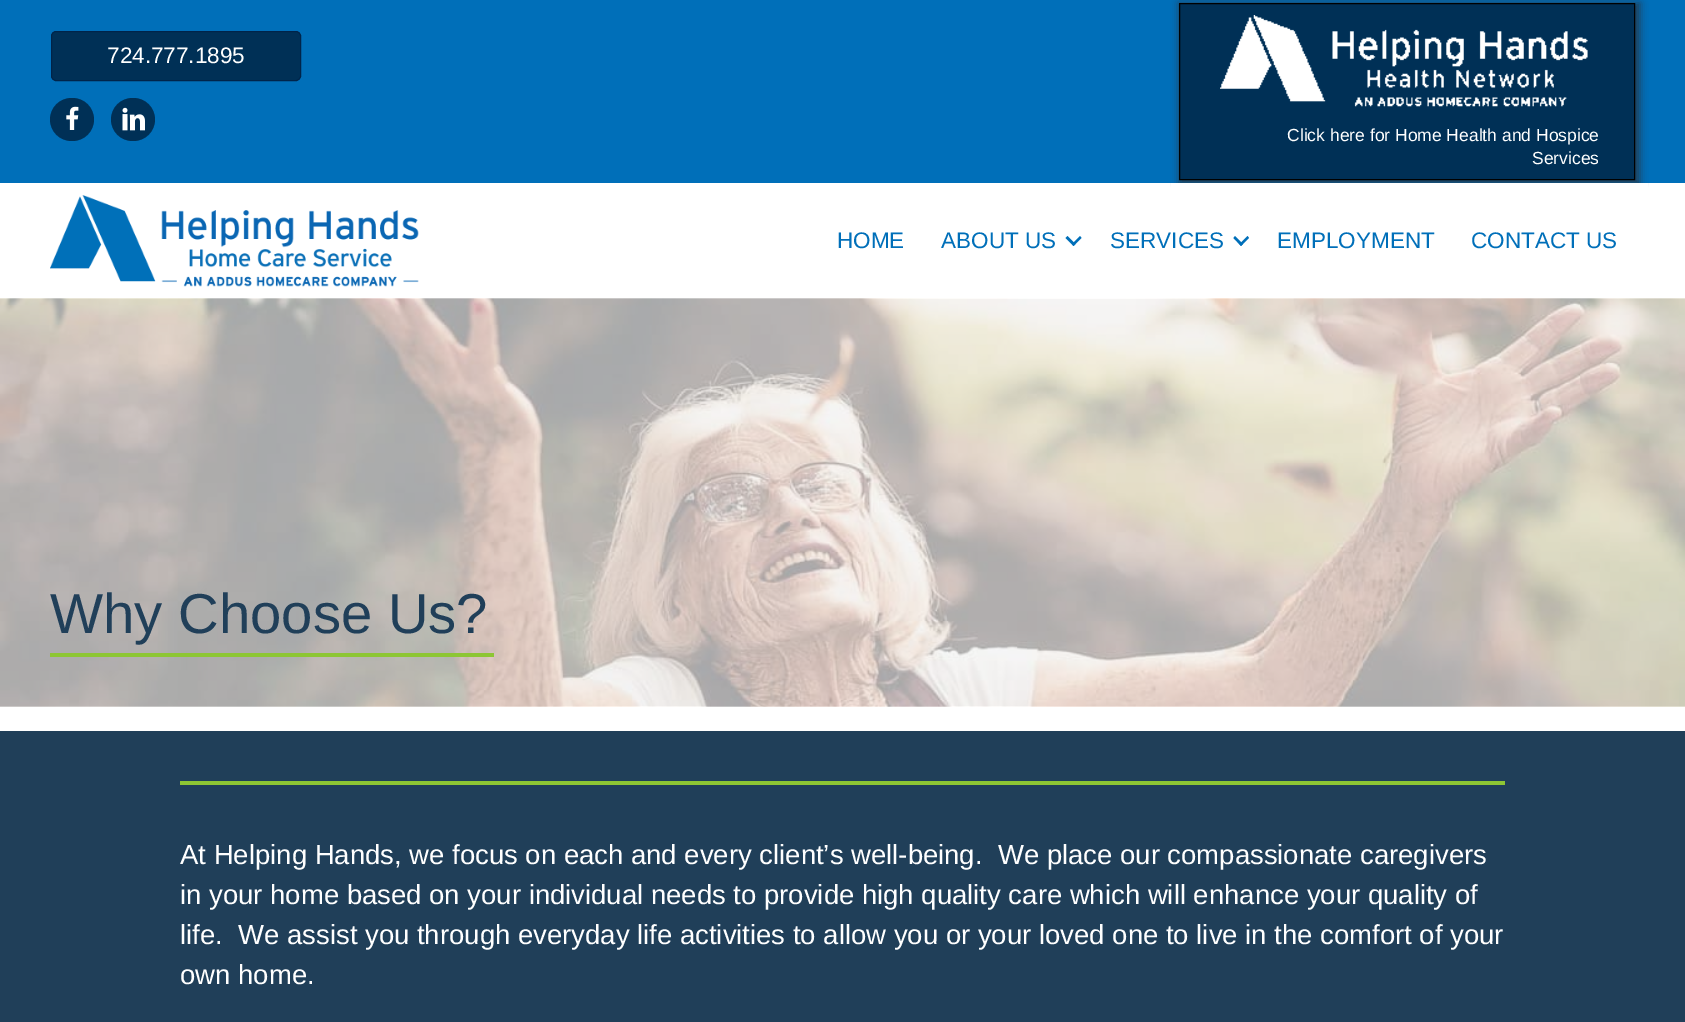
%!PS
<< /PageSize [1685 1022] /PageUsesTransparency true >> setpagedevice
/rgb { 3 { 255 div 3 1 roll } repeat setrgbcolor } def
/font { [ exch dup neg 0 0 3 -1 roll 0 0 ] selectfont } def
/text { moveto show } def
/alpha { dup .setfillconstantalpha .setstrokeconstantalpha } def
/roundrect { 5 dict begin { /r /h /w /y /x } { exch def } forall
  x r add y moveto x w add y 2 copy h add r arct x w add y h add x 1 index r arct
  x y h add x y r arct x y 2 copy exch w add exch r arct closepath end } def
/shadow { 12 dict begin { /a /b /q /h /w /y /x } { exch def } forall gsave /was 0 def
  9 -2 -9 { dup b mul 4 div /e exch def 1 sub .425 mul 2.718 exch exp 1 add a .99 .min exch div /now exch def
    1 1 now sub 1 was sub div sub alpha /was now def
    w h .min e 2 mul add 0 gt { x e sub y e sub w e 2 mul add h e 2 mul add
      q e add b .6 mul add w h .min 2 div e add .min 0 .max roundrect fill } if } for grestore end } def
/picture { 5 dict begin { /h /w /y /x /name } { exch def } forall
  gsave x y translate w h scale
  w h 8 [w 0 0 h 0 0] name (r) file false 3 colorimage grestore end } def
0 .pushpdf14devicefilter
0 1022 translate 1 -1 scale
4 setmiterlimit
255 255 255 rgb
0 0 1685 1022 rectfill
0 111 185 rgb
0 0 1685 183 rectfill
0 48 86 rgb
51.5 31.5 249 49 4.5 roundrect gsave fill grestore
0 36 74 rgb
stroke
0 48 86 rgb
50 98 44 43 21.5 roundrect fill
(img_01.rgb) 66 106 13 24 picture
111 98 44 43 21.5 roundrect fill
(img_02.rgb) 122 107 23 24 picture
32 63 89 rgb
1179 3 461 182 0 4 1 shadow
0 48 86 rgb
1179.5 3.5 moveto 455 0 rlineto 0 176 rlineto -455 0 rlineto closepath gsave fill grestore
0 0 0 rgb
stroke
(img_03.rgb) 1220 15 368 92 picture
255 255 255 rgb
1171 183 477 11 rectfill
(img_04.rgb) 50 195 369 92 picture
0 111 185 rgb
1080 236 moveto 1.5 2 rlineto -8 8 rlineto -1.5 -2 rlineto closepath fill
1067.5 236 moveto 8 8 rlineto -2 2 rlineto -8 -8 rlineto closepath fill
1247.5 236 moveto 1.5 2 rlineto -8 8 rlineto -1.5 -2 rlineto closepath fill
1235 236 moveto 8 8 rlineto -2 2 rlineto -7.5 -8 rlineto closepath fill
(img_05.rgb) 0 298 1685 409 picture
141 198 52 rgb
50 653 444 4 rectfill
32 63 89 rgb
0 731 1685 291 rectfill
141 198 52 rgb
180 781 1325 4 rectfill
/LiberationSans-Regular 22.5 font
255 255 255 rgb
(724.777.1895) 107 63 text
/LiberationSans-Regular 17.5 font
(Click here for Home Health and Hospice) 1287 141 text
(Services) 1532 164 text
/LiberationSans-Regular 22.5 font
0 111 185 rgb
(HOME) 837 248 text
(ABOUT US) 941 248 text
(SERVICES) 1110 248 text
(EMPLOYMENT) 1277 248 text
(CONTACT US) 1471 248 text
/LiberationSans-Regular 56.25 font
32 63 89 rgb
(Why Choose Us?) 50 633 text
/LiberationSans-Regular 27.5 font
255 255 255 rgb
(At Helping Hands, we focus on each and every client’s well-being.  We place our compassionate caregivers) 180 864 text
(in your home based on your individual needs to provide high quality care which will enhance your quality of) 180 904 text
(life.  We assist you through everyday life activities to allow you or your loved one to live in the comfort of your) 180 944 text
(own home.) 180 984 text
.poppdf14devicefilter showpage
